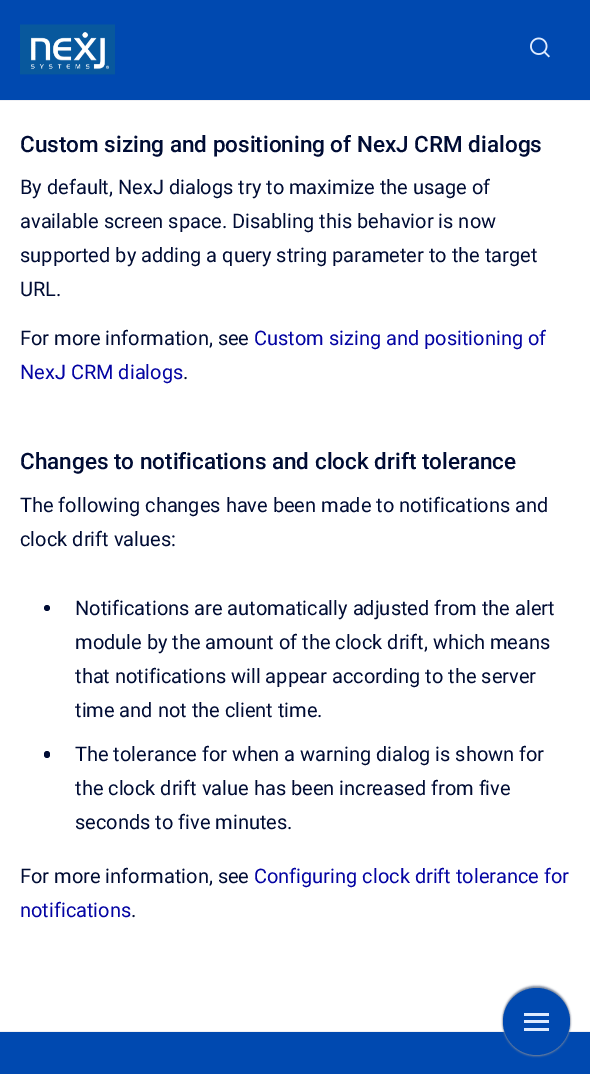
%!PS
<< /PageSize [590 1074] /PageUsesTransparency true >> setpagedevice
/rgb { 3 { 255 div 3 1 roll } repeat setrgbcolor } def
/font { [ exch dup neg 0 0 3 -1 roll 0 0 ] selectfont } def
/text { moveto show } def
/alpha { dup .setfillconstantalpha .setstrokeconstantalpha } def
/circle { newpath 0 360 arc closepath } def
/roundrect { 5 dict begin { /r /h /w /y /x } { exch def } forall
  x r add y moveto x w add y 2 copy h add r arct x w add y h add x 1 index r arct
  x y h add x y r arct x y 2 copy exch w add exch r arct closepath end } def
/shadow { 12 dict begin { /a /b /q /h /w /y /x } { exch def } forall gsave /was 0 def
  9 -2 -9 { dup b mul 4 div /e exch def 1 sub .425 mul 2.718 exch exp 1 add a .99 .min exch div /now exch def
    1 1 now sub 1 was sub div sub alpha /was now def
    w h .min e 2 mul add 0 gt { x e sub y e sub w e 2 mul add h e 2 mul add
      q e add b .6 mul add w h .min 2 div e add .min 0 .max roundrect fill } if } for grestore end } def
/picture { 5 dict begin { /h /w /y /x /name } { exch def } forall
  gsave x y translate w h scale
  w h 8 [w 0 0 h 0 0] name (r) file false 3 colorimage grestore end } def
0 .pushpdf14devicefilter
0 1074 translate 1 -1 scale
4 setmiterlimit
255 255 255 rgb
0 0 590 1074 rectfill
0 73 176 rgb
0 0 590 100 rectfill
239 240 244 rgb
0 100 590 1 rectfill
(img_01.rgb) 20 24 95 51 picture
(img_02.rgb) 530 37 20 21 picture
0 12 52 rgb
47 608 3 circle fill
44 751 6 7 3 roundrect fill
0 73 176 rgb
0 1032 590 42 rectfill
239 240 244 rgb
0 1031 590 1 rectfill
122 134 154 rgb
503 986 67 68 33.5 1 1 shadow
503 989 67 67 33.5 1 1 shadow
0 73 176 rgb
536.5 1021.5 33.5 circle fill
222 235 255 rgb
524 1013 25 3 rectfill
524 1020 25 3 rectfill
524 1028 25 3 rectfill
/Roboto-Medium 22.5 font
0 12 52 rgb
(Custom sizing and positioning of NexJ CRM dialogs) 20 152 text
/Roboto-Regular 20 font
(By default, NexJ dialogs try to maximize the usage of) 20 194 text
(available screen space. Disabling this behavior is now) 20 228 text
(supported by adding a query string parameter to the target) 20 262 text
(URL.) 20 296 text
(For more information, see) 20 345 text
4 4 163 rgb
(Custom sizing and positioning of) 254 345 text
(NexJ CRM dialogs) 20 379 text
0 12 52 rgb
(.) 183 379 text
/Roboto-Medium 22.5 font
(Changes to notifications and clock drift tolerance) 20 469 text
/Roboto-Regular 20 font
(The following changes have been made to notifications and) 20 512 text
(clock drift values:) 20 546 text
(Notifications are automatically adjusted from the alert) 75 615 text
(module by the amount of the clock drift, which means) 75 649 text
(that notifications will appear according to the server) 75 683 text
(time and not the client time.) 75 717 text
(The tolerance for when a warning dialog is shown for) 75 761 text
(the clock drift value has been increased from five) 75 795 text
(seconds to five minutes.) 75 829 text
(For more information, see) 20 883 text
4 4 163 rgb
(Configuring clock drift tolerance for) 254 883 text
(notifications) 20 917 text
0 12 52 rgb
(.) 131 917 text
.poppdf14devicefilter showpage
